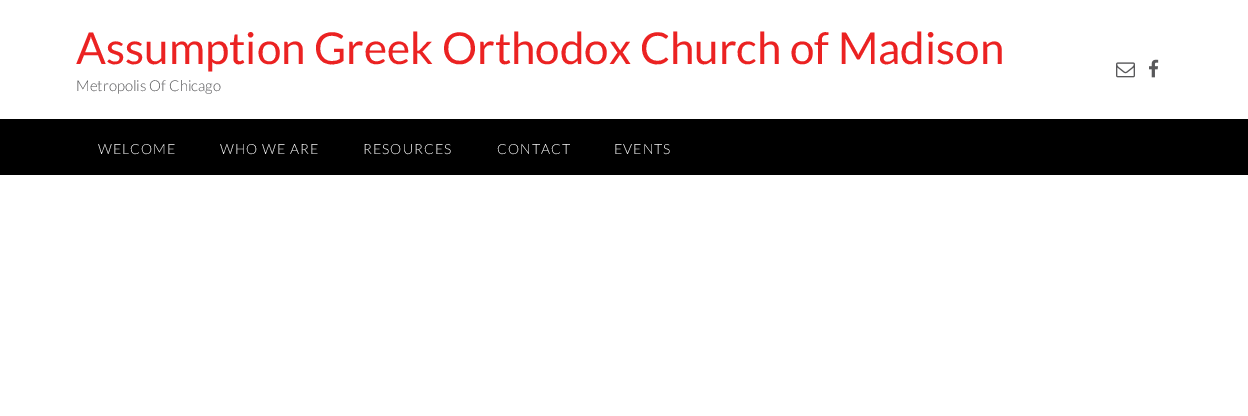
%!PS
<< /PageSize [1248 416] >> setpagedevice
/rgb { 3 { 255 div 3 1 roll } repeat setrgbcolor } def
/font { [ exch dup neg 0 0 3 -1 roll 0 0 ] selectfont } def
/text { moveto show } def
/picture { 5 dict begin { /h /w /y /x /name } { exch def } forall
  gsave x y translate w h scale
  w h 8 [w 0 0 h 0 0] name (r) file false 3 colorimage grestore end } def
0 416 translate 1 -1 scale
4 setmiterlimit
255 255 255 rgb
0 0 1248 416 rectfill
(img_01.rgb) 1116 62 19 16 picture
(img_02.rgb) 1149 59 10 19 picture
0 0 0 rgb
0 119 1248 56 rectfill
/Lato-Regular 44 font
235 34 34 rgb
(Assumption Greek Orthodox Church of Madison) 76 64 text
/Lato-Light 15 font
88 88 90 rgb
(Metropolis Of Chicago) 76 91 text
/Lato-Light 14 font
255 255 255 rgb
98 154 moveto 1 0 (WELCOME) ashow
220 154 moveto 1 0 (WHO WE ARE) ashow
363 154 moveto 1 0 (RESOURCES) ashow
497 154 moveto 1 0 (CONTACT) ashow
614 154 moveto 1 0 (EVENTS) ashow
showpage
